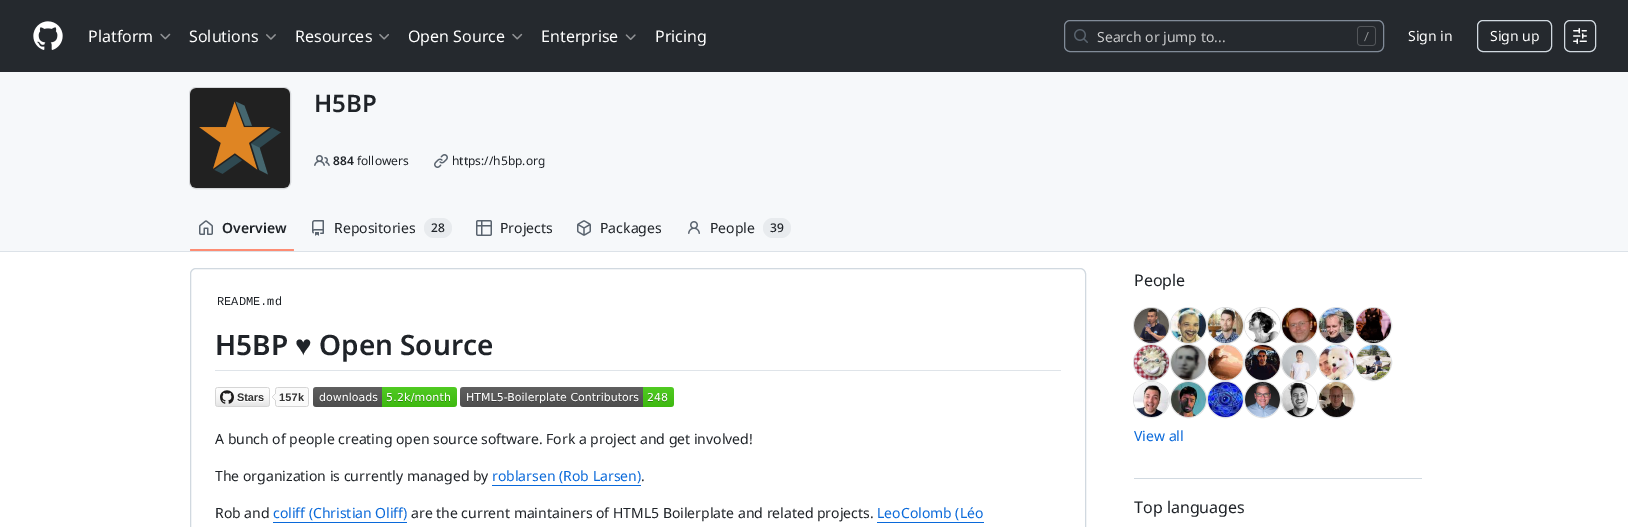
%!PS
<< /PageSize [1628 527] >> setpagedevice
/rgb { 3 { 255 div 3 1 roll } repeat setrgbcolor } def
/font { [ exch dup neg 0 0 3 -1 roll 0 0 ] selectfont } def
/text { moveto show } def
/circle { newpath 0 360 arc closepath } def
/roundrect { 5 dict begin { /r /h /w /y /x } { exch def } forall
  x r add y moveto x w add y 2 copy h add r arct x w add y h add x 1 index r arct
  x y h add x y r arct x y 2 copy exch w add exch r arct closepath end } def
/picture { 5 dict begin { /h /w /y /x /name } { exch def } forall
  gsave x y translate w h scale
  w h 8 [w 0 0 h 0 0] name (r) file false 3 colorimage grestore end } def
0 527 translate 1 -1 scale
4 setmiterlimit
255 255 255 rgb
0 0 1628 527 rectfill
37 41 46 rgb
0 0 1628 72 rectfill
(img_01.rgb) 33 21 30 29 picture
(img_02.rgb) 160 33 11 7 picture
(img_03.rgb) 266 34 10 6 picture
(img_04.rgb) 379 34 10 6 picture
(img_05.rgb) 512 33 11 7 picture
(img_06.rgb) 625 34 11 6 picture
129 139 152 rgb
1064.5 20.5 319 31 5.5 roundrect stroke
(img_07.rgb) 1074 29 14 14 picture
(img_08.rgb) 1357 26 19 20 picture
209 217 224 rgb
1477.5 20.5 74 31 5.5 roundrect stroke
1564.5 20.5 31 31 5.5 roundrect stroke
(img_09.rgb) 1573 28 14 16 picture
246 248 250 rgb
0 72 1628 179 rectfill
214 216 219 rgb
189.5 87.5 101 101 6.5 roundrect stroke
(img_10.rgb) 190 88 100 100 picture
(img_11.rgb) 314 155 16 11 picture
(img_12.rgb) 434 154 14 14 picture
220 226 232 rgb
0 251 1628 1 rectfill
(img_13.rgb) 199 220 14 15 picture
253 140 115 rgb
190 249 104 2 1 roundrect fill
(img_14.rgb) 312 220 12 16 picture
232 235 238 rgb
424 218 28 20 10 roundrect fill
(img_15.rgb) 476 220 16 16 picture
(img_16.rgb) 577 220 14 16 picture
(img_17.rgb) 688 221 12 13 picture
763 218 28 20 10 roundrect fill
209 217 224 rgb
190.5 268.5 895 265 5.5 roundrect stroke
223 228 233 rgb
215 370 846 1 rectfill
(img_18.rgb) 215 387 94 20 picture
(img_19.rgb) 313 387 144 20 picture
(img_20.rgb) 460 387 214 20 picture
9 105 218 rgb
492 485 149 1 rectfill
273 522 134 1 rectfill
877 522 107 1 rectfill
221 222 223 rgb
1151.5 325.5 18 circle stroke
255 255 255 rgb
1151.5 325.5 17.5 circle fill
(img_21.rgb) 1134 308 35 35 picture
221 222 223 rgb
1188.5 325.5 18 circle stroke
255 255 255 rgb
1188.5 325.5 17.5 circle fill
(img_22.rgb) 1171 308 35 35 picture
221 222 223 rgb
1225.5 325.5 18 circle stroke
255 255 255 rgb
1225.5 325.5 17.5 circle fill
(img_23.rgb) 1208 308 35 35 picture
221 222 223 rgb
1262.5 325.5 18 circle stroke
255 255 255 rgb
1262.5 325.5 17.5 circle fill
(img_24.rgb) 1245 308 35 35 picture
221 222 223 rgb
1299.5 325.5 18 circle stroke
255 255 255 rgb
1299.5 325.5 17.5 circle fill
(img_25.rgb) 1282 308 35 35 picture
221 222 223 rgb
1336.5 325.5 18 circle stroke
255 255 255 rgb
1336.5 325.5 17.5 circle fill
(img_26.rgb) 1319 308 35 35 picture
221 222 223 rgb
1373.5 325.5 18 circle stroke
255 255 255 rgb
1373.5 325.5 17.5 circle fill
(img_27.rgb) 1356 308 35 35 picture
221 222 223 rgb
1151.5 362.5 18 circle stroke
255 255 255 rgb
1151.5 362.5 17.5 circle fill
(img_28.rgb) 1134 345 35 35 picture
221 222 223 rgb
1188.5 362.5 18 circle stroke
255 255 255 rgb
1188.5 362.5 17.5 circle fill
(img_29.rgb) 1171 345 35 35 picture
221 222 223 rgb
1225.5 362.5 18 circle stroke
255 255 255 rgb
1225.5 362.5 17.5 circle fill
(img_30.rgb) 1208 345 35 35 picture
221 222 223 rgb
1262.5 362.5 18 circle stroke
255 255 255 rgb
1262.5 362.5 17.5 circle fill
(img_31.rgb) 1245 345 35 35 picture
221 222 223 rgb
1299.5 362.5 18 circle stroke
255 255 255 rgb
1299.5 362.5 17.5 circle fill
(img_32.rgb) 1282 345 35 35 picture
221 222 223 rgb
1336.5 362.5 18 circle stroke
255 255 255 rgb
1336.5 362.5 17.5 circle fill
(img_33.rgb) 1319 345 35 35 picture
221 222 223 rgb
1373.5 362.5 18 circle stroke
255 255 255 rgb
1373.5 362.5 17.5 circle fill
(img_34.rgb) 1356 345 35 35 picture
221 222 223 rgb
1151.5 399.5 18 circle stroke
255 255 255 rgb
1151.5 399.5 17.5 circle fill
(img_35.rgb) 1134 382 35 35 picture
221 222 223 rgb
1188.5 399.5 18 circle stroke
255 255 255 rgb
1188.5 399.5 17.5 circle fill
(img_36.rgb) 1171 382 35 35 picture
221 222 223 rgb
1225.5 399.5 18 circle stroke
255 255 255 rgb
1225.5 399.5 17.5 circle fill
(img_37.rgb) 1208 382 35 35 picture
221 222 223 rgb
1262.5 399.5 18 circle stroke
255 255 255 rgb
1262.5 399.5 17.5 circle fill
(img_38.rgb) 1245 382 35 35 picture
221 222 223 rgb
1299.5 399.5 18 circle stroke
255 255 255 rgb
1299.5 399.5 17.5 circle fill
(img_39.rgb) 1282 382 35 35 picture
221 222 223 rgb
1336.5 399.5 18 circle stroke
255 255 255 rgb
1336.5 399.5 17.5 circle fill
(img_40.rgb) 1319 382 35 35 picture
209 217 224 rgb
1134 478 288 1 rectfill
/NotoSans-Regular 16 font
255 255 255 rgb
(Platform) 88 42 text
(Solutions) 189 42 text
(Resources) 295 42 text
(Open Source) 408 42 text
(Enterprise) 541 42 text
(Pricing) 655 42 text
/NotoSans-Regular 14 font
201 202 203 rgb
(Search or jump to...) 1097 42 text
255 255 255 rgb
(Sign in) 1408 41 text
(Sign up) 1490 41 text
/NotoSans-SemiBold 24 font
31 35 40 rgb
(H5BP) 314 112 text
/NotoSans-SemiBold 12 font
(884) 333 165 text
/NotoSans-Regular 12 font
(followers) 357 165 text
(https://h5bp.org) 452 165 text
/NotoSans-SemiBold 14 font
(Overview) 222 233 text
/NotoSans-Regular 14 font
(Repositories) 334 233 text
/NotoSans-Medium 12 font
(28) 431 232 text
/NotoSans-Regular 14 font
(Projects) 500 233 text
(Packages) 600 233 text
(People) 710 233 text
/NotoSans-Medium 12 font
(39) 770 232 text
/LiberationMono-Regular 12 font
(README.md) 217 305 text
/NotoSans-SemiBold 28 font
(H5BP) 215 355 text
/LiberationSans-Bold 28 font
(♥) 295 355 text
/NotoSans-SemiBold 28 font
(Open Source) 319 355 text
/NotoSans-Regular 14 font
(A bunch of people creating open source software. Fork a project and get involved!) 215 444 text
(The organization is currently managed by) 215 481 text
9 105 218 rgb
(roblarsen \(Rob Larsen\)) 492 481 text
31 35 40 rgb
(.) 641 481 text
(Rob and) 215 518 text
9 105 218 rgb
(coliff \(Christian Oliff\)) 273 518 text
31 35 40 rgb
(are the current maintainers of HTML5 Boilerplate and related projects.) 411 518 text
9 105 218 rgb
(LeoColomb \(Léo) 877 518 text
/NotoSans-Regular 16 font
31 35 40 rgb
(People) 1134 286 text
/NotoSans-Regular 14 font
9 105 218 rgb
(View all) 1134 441 text
/NotoSans-Regular 16 font
31 35 40 rgb
(Top languages) 1134 513 text
showpage
